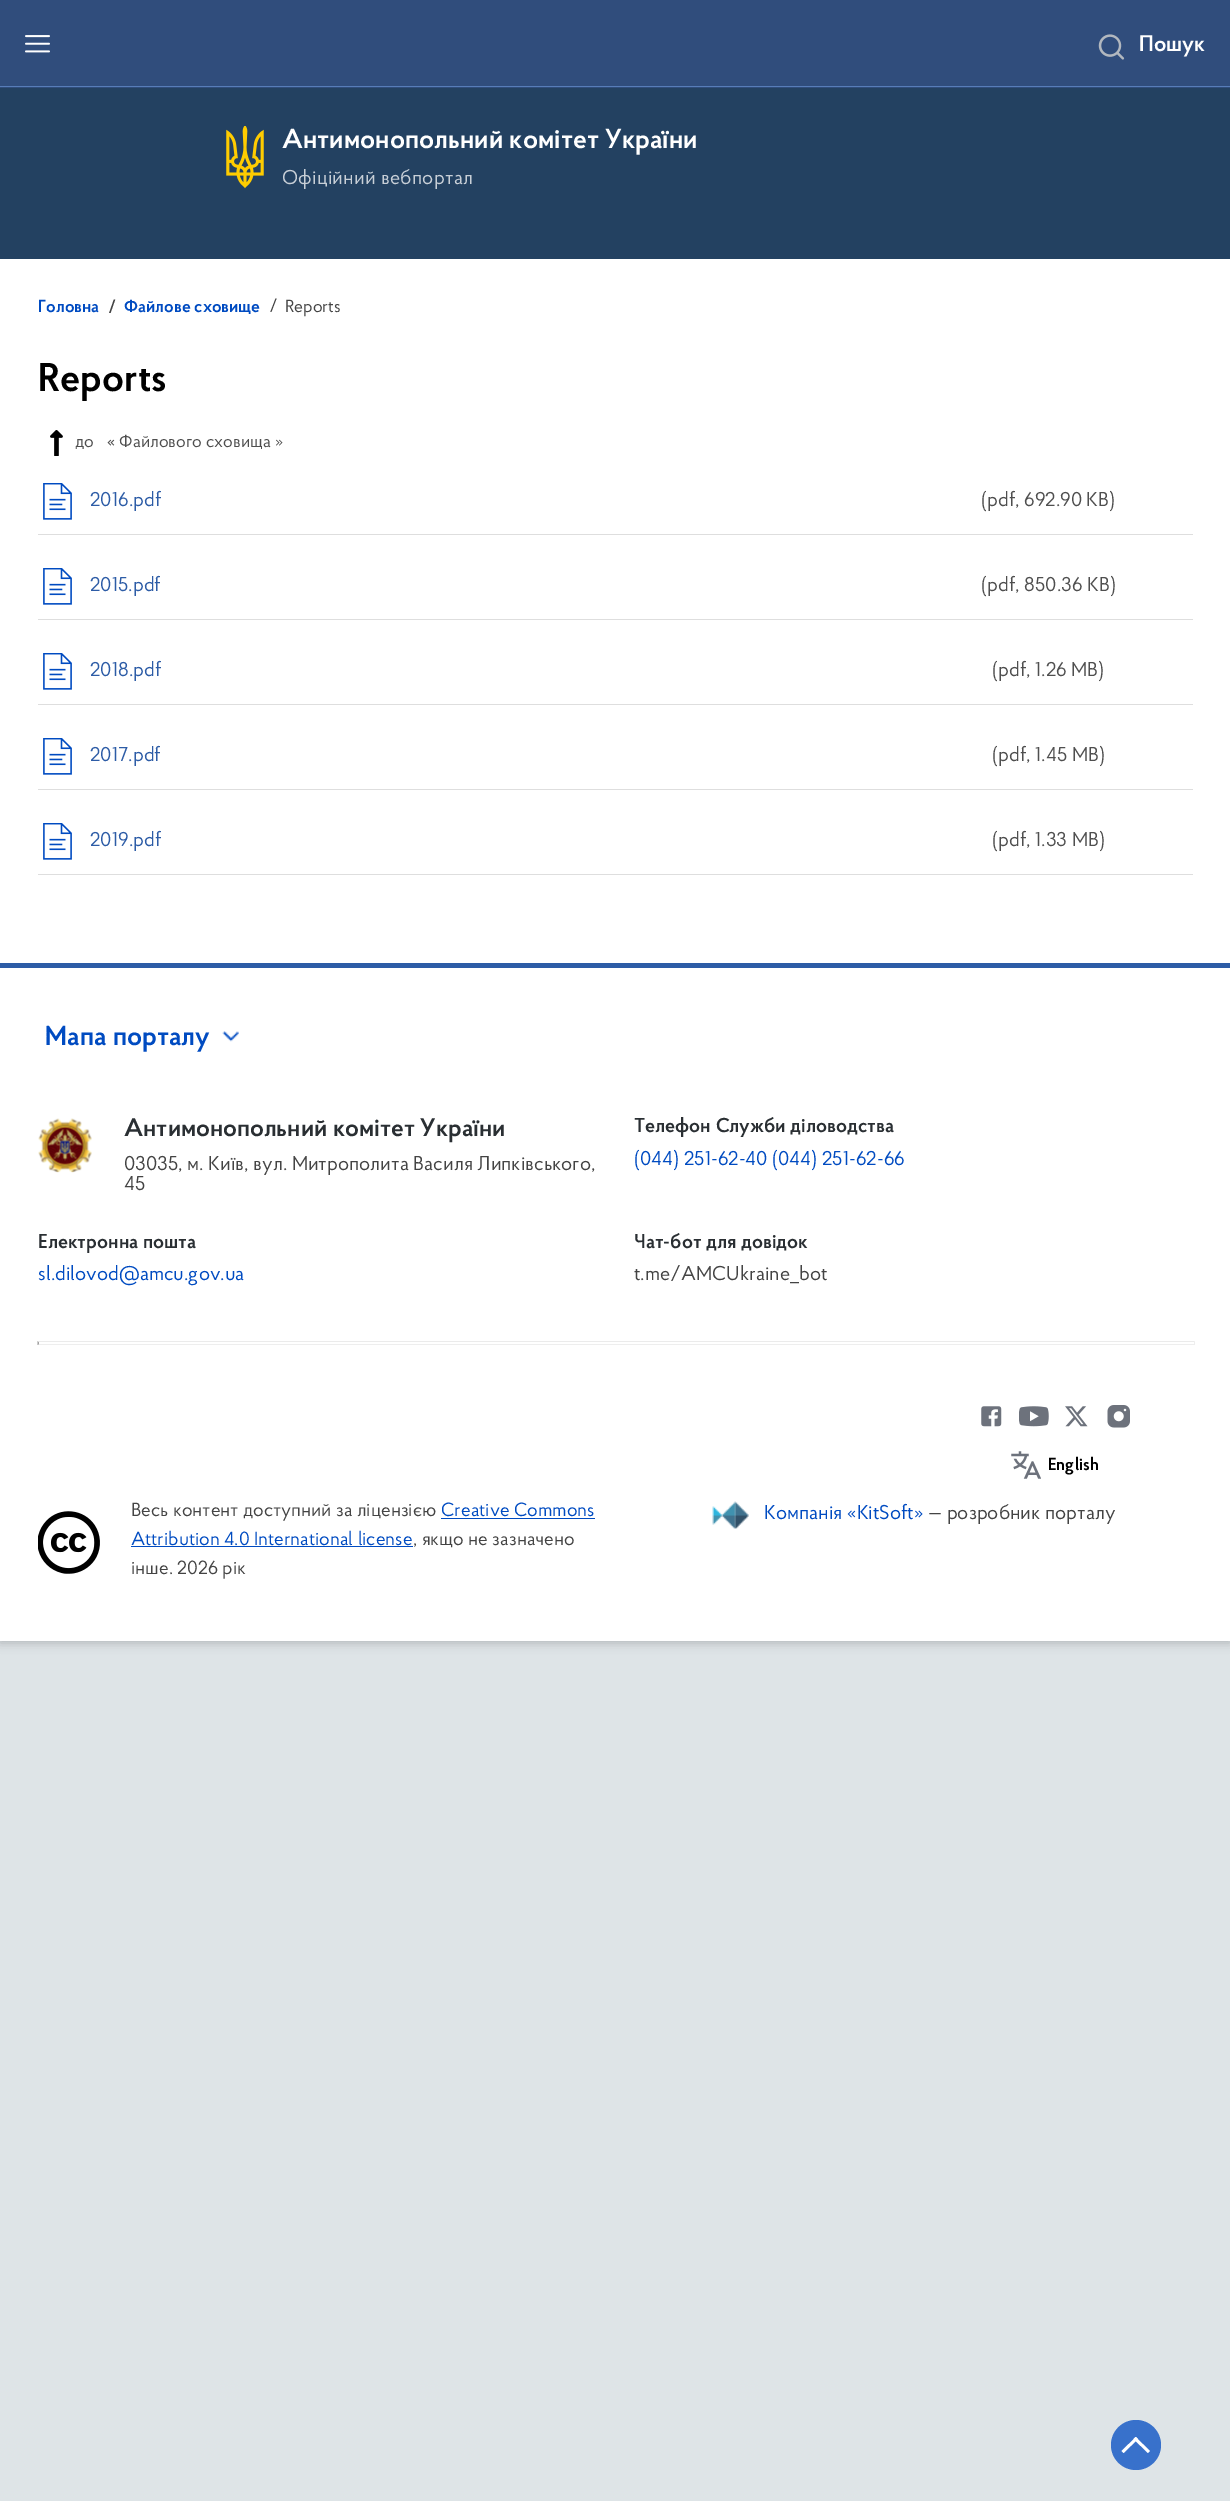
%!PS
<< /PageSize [1230 2501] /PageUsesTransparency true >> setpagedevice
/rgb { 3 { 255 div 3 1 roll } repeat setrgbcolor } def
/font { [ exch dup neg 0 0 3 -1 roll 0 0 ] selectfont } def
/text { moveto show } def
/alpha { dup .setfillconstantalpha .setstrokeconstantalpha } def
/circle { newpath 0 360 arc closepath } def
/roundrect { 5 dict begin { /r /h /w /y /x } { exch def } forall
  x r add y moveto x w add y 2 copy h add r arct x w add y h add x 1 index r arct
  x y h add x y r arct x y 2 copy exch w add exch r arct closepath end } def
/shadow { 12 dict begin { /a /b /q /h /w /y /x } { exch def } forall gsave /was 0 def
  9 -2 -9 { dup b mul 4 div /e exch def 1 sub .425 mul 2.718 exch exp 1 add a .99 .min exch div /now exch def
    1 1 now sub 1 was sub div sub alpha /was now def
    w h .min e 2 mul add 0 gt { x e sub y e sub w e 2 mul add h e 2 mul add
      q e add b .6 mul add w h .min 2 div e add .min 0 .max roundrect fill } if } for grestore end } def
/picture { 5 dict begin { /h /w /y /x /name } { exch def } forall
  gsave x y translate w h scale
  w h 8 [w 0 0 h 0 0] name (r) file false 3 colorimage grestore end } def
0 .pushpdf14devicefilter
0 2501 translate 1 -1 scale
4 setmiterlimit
222 228 231 rgb
0 0 1230 2501 rectfill
0 0 0 rgb
0 1 1230 1642 0 5 0.2 shadow
255 255 255 rgb
0 259 1230 1382 rectfill
35 65 97 rgb
0 88 1230 171 rectfill
48 77 124 rgb
0 0 1230 88 rectfill
(img_01.rgb) 1098 34 27 26 picture
87 125 184 rgb
0 86 1230 1 rectfill
(img_02.rgb) 25 35 25 18 picture
(img_03.rgb) 226 126 38 63 picture
(img_04.rgb) 50 430 13 26 picture
222 222 222 rgb
38 534 1155 1 rectfill
(img_05.rgb) 43 483 29 37 picture
38 619 1155 1 rectfill
(img_05.rgb) 43 568 29 37 picture
38 704 1155 1 rectfill
(img_05.rgb) 43 653 29 37 picture
38 789 1155 1 rectfill
(img_05.rgb) 43 738 29 37 picture
38 874 1155 1 rectfill
(img_05.rgb) 43 823 29 37 picture
45 92 166 rgb
0 963 1230 5 rectfill
(img_06.rgb) 222 1031 17 11 picture
(img_07.rgb) 38 1118 54 55 picture
235 235 235 rgb
38 1341 moveto 1157 0 rlineto -1 1 rlineto -1155 0 rlineto closepath fill
238 238 238 rgb
1195 1341 moveto 0 4 rlineto -1 -1 rlineto 0 -1.5 rlineto closepath fill
38 1344 1157 1 rectfill
159 159 159 rgb
37.5 1345 moveto 0 -4 rlineto 1.5 1.5 rlineto 0 1.5 rlineto closepath fill
(img_08.rgb) 981 1406 21 21 picture
(img_09.rgb) 1019 1406 30 21 picture
(img_10.rgb) 1065 1406 23 21 picture
(img_11.rgb) 1107 1405 23 23 picture
(img_12.rgb) 1011 1451 30 28 picture
(img_13.rgb) 38 1511 62 63 picture
0 75 193 rgb
441 1518 154 1 rectfill
131 1546 282 1 rectfill
(img_14.rgb) 712 1501 37 28 picture
56 113 203 rgb
1136 2445 25 circle fill
255 255 255 rgb
1133.5 2439 moveto 2 -2 rlineto 14.5 14 rlineto -2 2 rlineto closepath fill
1136 2437 moveto 2 2 rlineto -14.5 14 rlineto -2 -2 rlineto closepath fill
/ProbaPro-SemiBold 22.5 font
(Пошук) 1139 51 text
/ProbaPro-SemiBold 27.5 font
(Антимонопольний комітет України) 282 148 text
/ProbaPro-Regular 20 font
200 207 215 rgb
282 184 moveto 0.25 0 (Офіційний вебпортал) ashow
/ProbaPro-SemiBold 17.5 font
0 75 193 rgb
(Головна) 38 312 text
/Roboto-SemiBold 17.5 font
68 68 68 rgb
(/) 109 312 text
/ProbaPro-SemiBold 17.5 font
0 75 193 rgb
(Файлове сховище) 124 312 text
/Roboto-Regular 17.5 font
68 68 68 rgb
(/) 270 311 text
/ProbaPro-Regular 17.5 font
(Reports) 285 312 text
/ProbaPro-SemiBold 40 font
0 0 0 rgb
(Reports) 38 391 text
/ProbaPro-Regular 17.5 font
79 79 79 rgb
(до) 75 447 text
(« Файлового сховища ») 107 447 text
/ProbaPro-Regular 20 font
45 92 166 rgb
(2016.pdf) 90 506 text
79 79 79 rgb
(\(pdf, 692.90 KB\)) 981 506 text
45 92 166 rgb
(2015.pdf) 90 591 text
79 79 79 rgb
(\(pdf, 850.36 KB\)) 981 591 text
45 92 166 rgb
(2018.pdf) 90 676 text
79 79 79 rgb
(\(pdf, 1.26 MB\)) 992 676 text
45 92 166 rgb
(2017.pdf) 90 761 text
79 79 79 rgb
(\(pdf, 1.45 MB\)) 992 761 text
45 92 166 rgb
(2019.pdf) 90 846 text
79 79 79 rgb
(\(pdf, 1.33 MB\)) 992 846 text
/ProbaPro-SemiBold 27.5 font
0 75 193 rgb
(Мапа порталу) 45 1045 text
/ProbaPro-SemiBold 25.25 font
42 47 51 rgb
(Антимонопольний комітет України) 124 1136 text
/ProbaPro-Regular 20 font
68 68 68 rgb
(03035, м. Київ, вул. Митрополита Василя Липківського,) 124 1170 text
(45) 124 1190 text
/ProbaPro-SemiBold 20 font
42 47 51 rgb
(Телефон Служби діловодства) 634 1132 text
/ProbaPro-Regular 20 font
0 75 193 rgb
(\(044\) 251-62-40 \(044\) 251-62-66) 634 1165 text
/ProbaPro-SemiBold 20 font
42 47 51 rgb
(Електронна пошта) 38 1248 text
/ProbaPro-Regular 20 font
0 75 193 rgb
(sl.dilovod@amcu.gov.ua) 38 1280 text
/ProbaPro-SemiBold 20 font
42 47 51 rgb
(Чат-бот для довідок) 634 1248 text
/ProbaPro-Regular 20 font
68 68 68 rgb
(t.me/AMCUkraine_bot) 634 1280 text
/ProbaPro-SemiBold 17.5 font
0 0 0 rgb
(English) 1048 1470 text
/ProbaPro-Regular 19.1 font
68 68 68 rgb
(Весь контент доступний за ліцензією) 131 1516 text
0 75 193 rgb
(Creative Commons) 441 1516 text
(Attribution 4.0 International license) 131 1545 text
68 68 68 rgb
(, якщо не зазначено) 413 1545 text
(інше. 2026 рік) 131 1574 text
/ProbaPro-Regular 20 font
0 75 193 rgb
(Компанія «KitSoft») 764 1519 text
68 68 68 rgb
(— розробник порталу) 928 1519 text
.poppdf14devicefilter showpage
